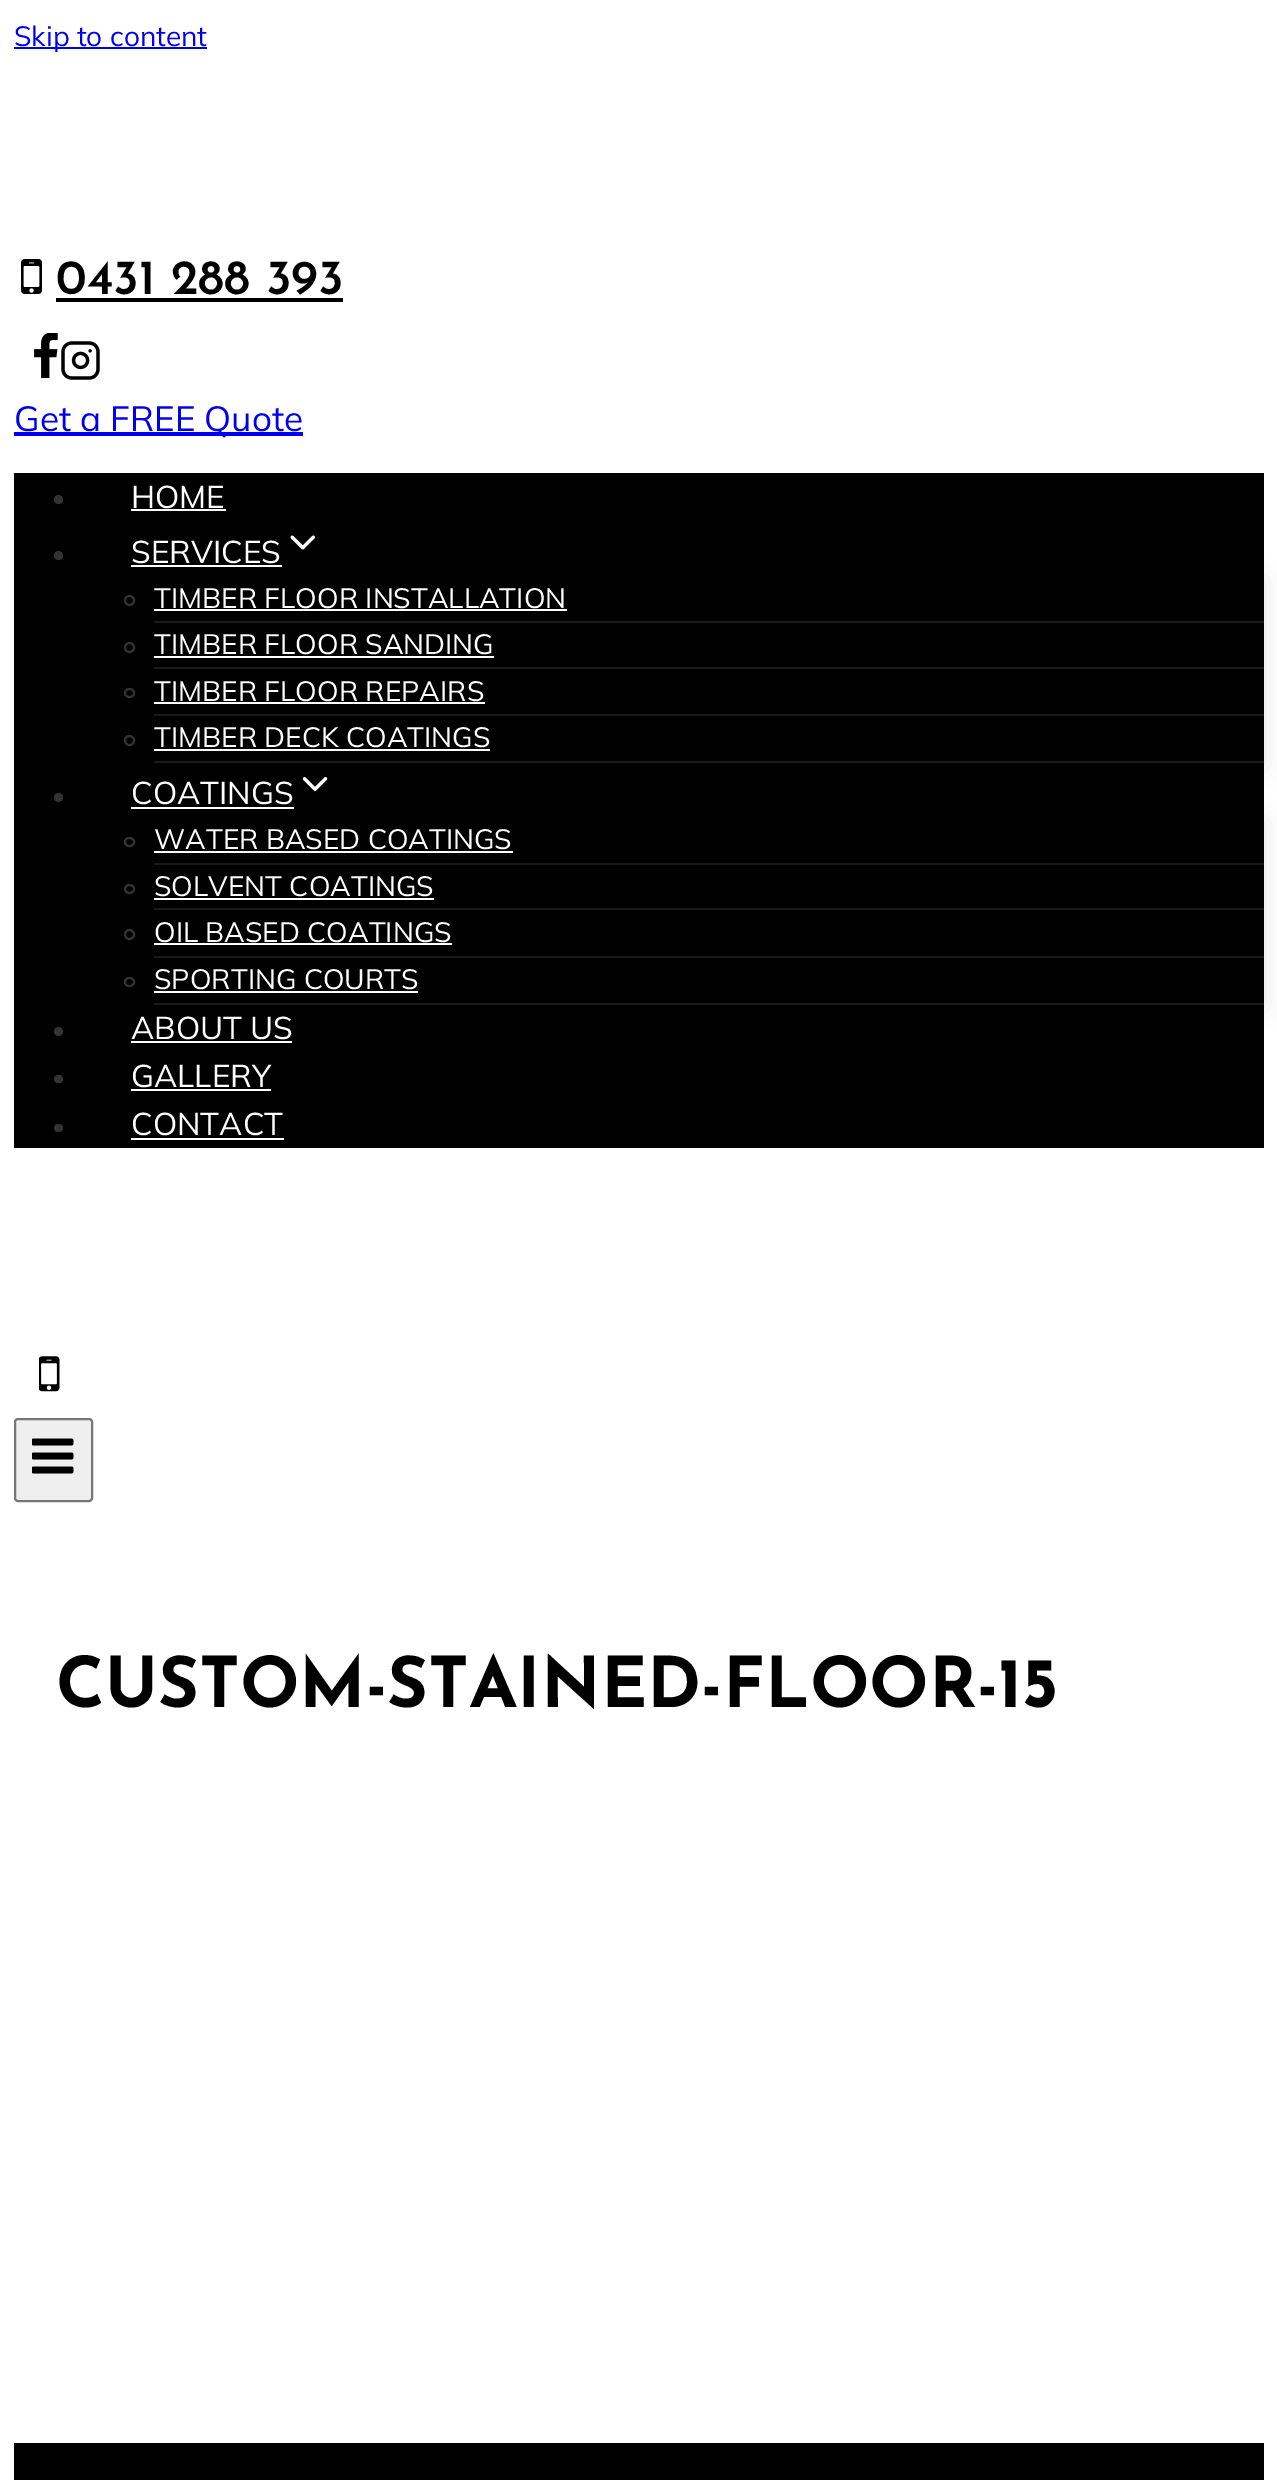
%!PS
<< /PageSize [1277 2480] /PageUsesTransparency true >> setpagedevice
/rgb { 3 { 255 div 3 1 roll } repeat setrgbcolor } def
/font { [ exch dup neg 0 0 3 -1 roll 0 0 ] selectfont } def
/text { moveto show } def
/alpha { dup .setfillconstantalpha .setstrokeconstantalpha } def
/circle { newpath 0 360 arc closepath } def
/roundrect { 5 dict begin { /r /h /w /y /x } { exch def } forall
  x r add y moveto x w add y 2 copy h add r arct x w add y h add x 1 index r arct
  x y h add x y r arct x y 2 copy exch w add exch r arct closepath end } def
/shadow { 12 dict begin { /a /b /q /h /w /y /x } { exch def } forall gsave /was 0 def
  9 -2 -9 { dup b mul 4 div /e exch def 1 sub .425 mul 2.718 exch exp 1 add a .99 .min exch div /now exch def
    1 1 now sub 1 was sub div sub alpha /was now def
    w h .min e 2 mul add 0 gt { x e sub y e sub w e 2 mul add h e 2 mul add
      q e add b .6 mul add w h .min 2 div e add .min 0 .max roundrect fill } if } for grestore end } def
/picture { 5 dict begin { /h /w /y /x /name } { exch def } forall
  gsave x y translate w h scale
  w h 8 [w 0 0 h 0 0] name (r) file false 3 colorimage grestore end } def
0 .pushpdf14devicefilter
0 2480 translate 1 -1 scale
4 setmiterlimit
255 255 255 rgb
0 0 1277 2480 rectfill
0 0 238 rgb
14 47 193 2 rectfill
(img_01.rgb) 21 259 21 35 picture
0 0 0 rgb
56 298 287 4 rectfill
(img_02.rgb) 34 333 24 45 picture
(img_03.rgb) 61 341 39 39 picture
0 0 238 rgb
14 432 289 4 rectfill
0 0 0 rgb
14 473 1250 675 rectfill
51 51 51 rgb
58.5 499.5 4.5 circle fill
255 255 255 rgb
131 509 95 2 rectfill
gsave
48 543 moveto 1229 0 rlineto 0 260 rlineto -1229 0 rlineto closepath 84 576 moveto 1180 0 rlineto 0 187 rlineto -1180 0 rlineto closepath eoclip newpath
0 0 0 rgb
84 579 1180 188 0 11.5 0.1 shadow
grestore
51 51 51 rgb
58.5 555.5 4.5 circle fill
255 255 255 rgb
131 565 151 2 rectfill
(img_04.rgb) 290 535 25 15 picture
26 26 26 rgb
154 621 1110 2 rectfill
51 51 51 rgb
2 setlinewidth
129.5 600.5 4.5 circle stroke
255 255 255 rgb
154 609 413 2 rectfill
26 26 26 rgb
154 667 1110 2 rectfill
51 51 51 rgb
129.5 647.5 4.5 circle stroke
255 255 255 rgb
154 656 340 2 rectfill
26 26 26 rgb
154 714 1110 2 rectfill
51 51 51 rgb
125 689 9 8 4 roundrect stroke
255 255 255 rgb
154 702 331 2 rectfill
26 26 26 rgb
154 761 1110 2 rectfill
51 51 51 rgb
129.5 740.5 4.5 circle stroke
255 255 255 rgb
154 749 336 2 rectfill
gsave
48 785 moveto 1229 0 rlineto 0 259 rlineto -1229 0 rlineto closepath 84 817 moveto 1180 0 rlineto 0 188 rlineto -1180 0 rlineto closepath eoclip newpath
0 0 0 rgb
84 821 1180 187 0 11.5 0.1 shadow
grestore
51 51 51 rgb
58.5 797.5 4.5 circle fill
255 255 255 rgb
131 807 163 2 rectfill
(img_05.rgb) 302 777 26 14 picture
26 26 26 rgb
154 863 1110 2 rectfill
51 51 51 rgb
125 838 9 8 4 roundrect stroke
255 255 255 rgb
154 851 359 2 rectfill
26 26 26 rgb
154 908 1110 2 rectfill
51 51 51 rgb
125 885 9 8 4 roundrect stroke
255 255 255 rgb
154 898 280 2 rectfill
26 26 26 rgb
154 956 1110 2 rectfill
51 51 51 rgb
129.5 934.5 4.5 circle stroke
255 255 255 rgb
154 943 298 2 rectfill
26 26 26 rgb
154 1003 1110 2 rectfill
51 51 51 rgb
125 978 9 8 4 roundrect stroke
255 255 255 rgb
154 991 264 2 rectfill
51 51 51 rgb
58.5 1031.5 4.5 circle fill
255 255 255 rgb
131 1041 161 2 rectfill
51 51 51 rgb
54 1075 9 8 4 roundrect fill
255 255 255 rgb
131 1089 140 2 rectfill
51 51 51 rgb
54 1124 9 8 4 roundrect fill
255 255 255 rgb
131 1138 153 2 rectfill
(img_06.rgb) 39 1356 21 36 picture
239 239 239 rgb
15 1419 77 82 3 roundrect gsave fill grestore
118 118 118 rgb
stroke
(img_07.rgb) 32 1438 42 36 picture
0 0 0 rgb
14 2443 1250 37 rectfill
/Mulish-Regular 28 font
0 0 238 rgb
(Skip to content) 14 46 text
/JosefinSans-SemiBold 49 font
0 0 0 rgb
(0431 288 393) 56 294 text
/Mulish-Regular 35 font
0 0 238 rgb
(Get a FREE Quote) 14 431 text
/Mulish-Regular 31.5 font
255 255 255 rgb
(HOME) 131 508 text
(SERVICES) 131 563 text
/Mulish-Regular 28 font
(TIMBER FLOOR INSTALLATION) 154 608 text
(TIMBER FLOOR SANDING) 154 654 text
(TIMBER FLOOR REPAIRS) 154 701 text
(TIMBER DECK COATINGS) 154 747 text
/Mulish-Regular 31.5 font
(COATINGS) 131 804 text
/Mulish-Regular 28 font
(WATER BASED COATINGS) 154 849 text
(SOLVENT COATINGS) 154 896 text
(OIL BASED COATINGS) 154 942 text
(SPORTING COURTS) 154 989 text
/Mulish-Regular 31.5 font
(ABOUT US) 131 1039 text
(GALLERY) 131 1087 text
(CONTACT) 131 1135 text
/JosefinSans-Bold 70 font
0 0 0 rgb
(CUSTOM-STAINED-FLOOR-15) 56 1707 text
.poppdf14devicefilter showpage
